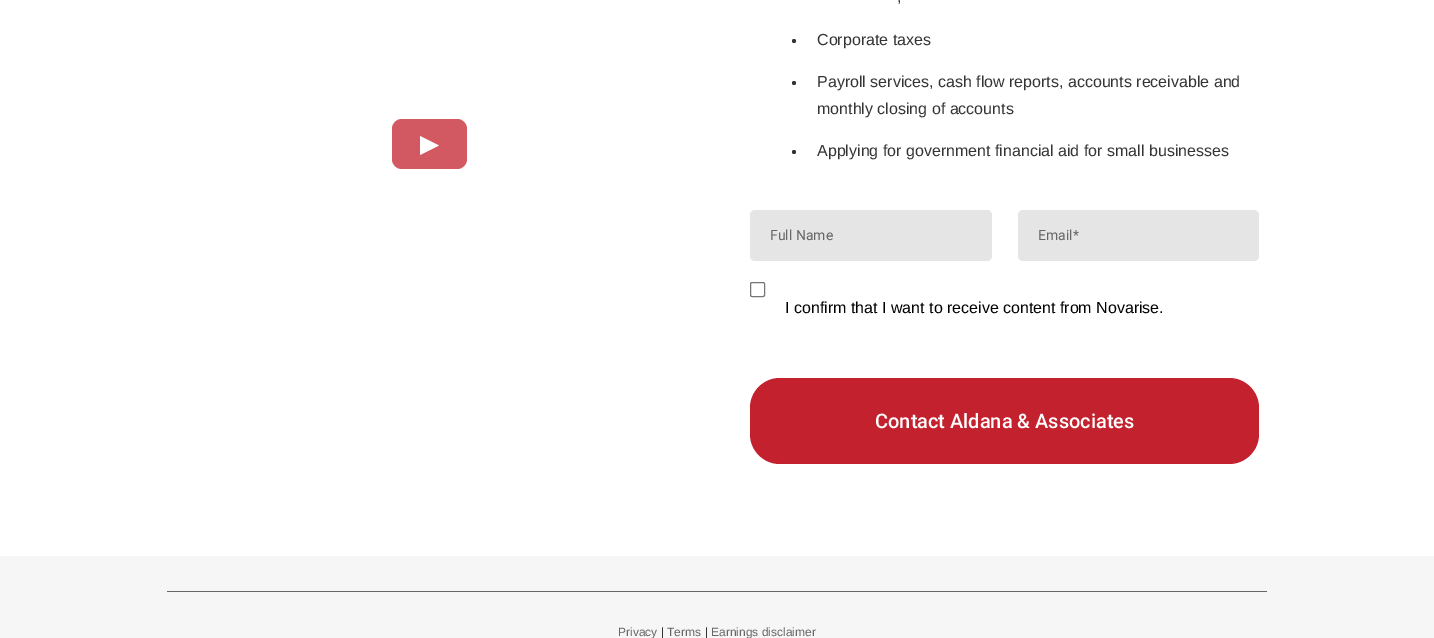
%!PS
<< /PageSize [1434 638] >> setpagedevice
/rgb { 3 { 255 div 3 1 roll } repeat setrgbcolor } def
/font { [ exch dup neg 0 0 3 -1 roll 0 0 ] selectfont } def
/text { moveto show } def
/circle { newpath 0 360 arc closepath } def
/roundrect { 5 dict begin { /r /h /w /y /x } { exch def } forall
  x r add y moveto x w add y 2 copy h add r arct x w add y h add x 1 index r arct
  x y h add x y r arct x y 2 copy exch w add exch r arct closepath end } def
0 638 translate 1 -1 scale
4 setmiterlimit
255 255 255 rgb
0 0 1434 638 rectfill
210 89 98 rgb
392 119 75 50 10 roundrect fill
52 52 52 rgb
794 41 2 circle fill
794 83 2 circle fill
794 152 2 circle fill
229 229 229 rgb
750 210 242 51 5 roundrect fill
1018 210 241 51 5 roundrect fill
118 118 118 rgb
750.5 282.5 14 14 1.5 roundrect stroke
195 33 46 rgb
750 378 509 86 30 roundrect fill
246 246 246 rgb
0 556 1434 82 rectfill
102 102 102 rgb
167 591 1100 1 rectfill
/DejaVuSans-Regular 25 font
255 255 255 rgb
(▶) 420 152 text
/LiberationSans-Regular 16 font
52 52 52 rgb
(,) 897 2 text
(Corporate taxes) 817 45 text
(Payroll services, cash flow reports, accounts receivable and) 817 87 text
(monthly closing of accounts) 817 114 text
(Applying for government financial aid for small businesses) 817 156 text
/Roboto-Regular 14 font
102 102 102 rgb
(Full Name) 770 240 text
(Email*) 1038 240 text
/LiberationSans-Regular 16 font
0 0 0 rgb
(I confirm that I want to receive content from Novarise.) 785 313 text
/Roboto-Medium 20 font
255 255 255 rgb
(Contact Aldana & Associates) 875 428 text
/LiberationSans-Regular 12 font
102 102 102 rgb
(Privacy) 618 636 text
52 52 52 rgb
(|) 661 636 text
102 102 102 rgb
(Terms) 667 636 text
52 52 52 rgb
(|) 705 636 text
102 102 102 rgb
(Earnings disclaimer) 711 636 text
showpage
